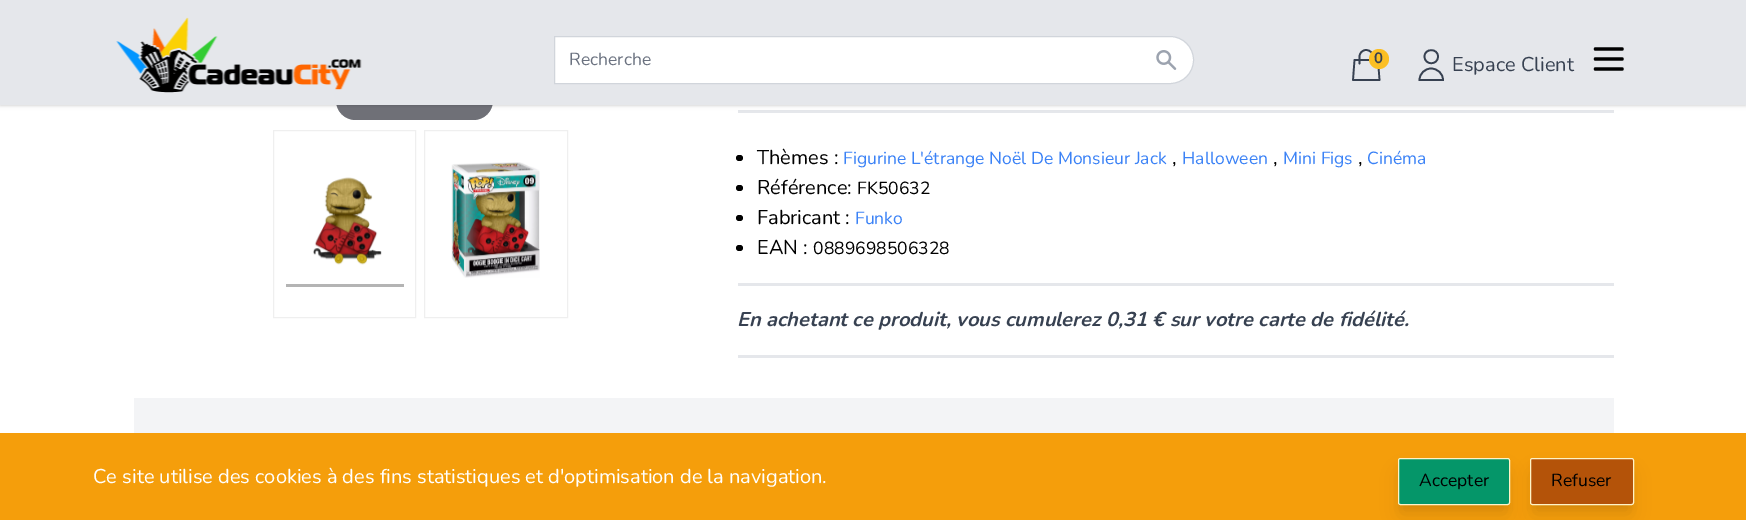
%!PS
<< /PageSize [1746 520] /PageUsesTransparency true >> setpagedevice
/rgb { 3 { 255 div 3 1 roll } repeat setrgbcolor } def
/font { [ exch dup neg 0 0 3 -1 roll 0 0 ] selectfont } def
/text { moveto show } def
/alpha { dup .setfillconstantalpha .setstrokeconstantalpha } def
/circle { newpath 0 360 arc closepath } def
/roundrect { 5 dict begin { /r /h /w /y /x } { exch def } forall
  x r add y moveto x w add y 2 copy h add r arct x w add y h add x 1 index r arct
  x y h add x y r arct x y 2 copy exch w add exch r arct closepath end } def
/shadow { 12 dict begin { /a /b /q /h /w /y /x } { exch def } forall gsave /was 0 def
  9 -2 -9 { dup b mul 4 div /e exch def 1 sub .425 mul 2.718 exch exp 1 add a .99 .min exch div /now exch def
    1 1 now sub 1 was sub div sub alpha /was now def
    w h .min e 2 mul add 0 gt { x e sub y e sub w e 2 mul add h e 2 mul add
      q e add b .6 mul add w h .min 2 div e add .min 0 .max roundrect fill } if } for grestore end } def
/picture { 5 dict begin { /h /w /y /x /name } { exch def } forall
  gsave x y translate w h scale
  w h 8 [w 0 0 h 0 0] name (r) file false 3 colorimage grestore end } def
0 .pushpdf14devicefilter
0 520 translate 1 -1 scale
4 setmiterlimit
255 255 255 rgb
0 0 1746 520 rectfill
111 112 119 rgb
336 81 157 39 19.5 roundrect fill
0 0 0 rgb
0 1 1746 105 0 1 0.06 shadow
229 231 235 rgb
738 110 876 3 rectfill
0 0 0 rgb
0 1 1746 105 0 2 0.1 shadow
229 231 235 rgb
0 0 1746 105 rectfill
(img_01.rgb) 116 17 246 76 picture
255 255 255 rgb
554.5 36.5 moveto 615.5 0 rlineto 13 0 23.5 10.5 23.5 23.5 rcurveto 0 13 -10.5 23.5 -23.5 23.5 rcurveto -615.5 0 rlineto closepath gsave fill grestore
209 213 219 rgb
stroke
(img_02.rgb) 1156 50 21 20 picture
55 65 81 rgb
1.7 setlinewidth
1 setlinecap
1 setlinejoin
1373 63.5 moveto 0 -7 rlineto 0 -3.5 -3 -6.5 -7 -6.5 rcurveto -3.5 0 -6.5 3 -6.5 6.5 rcurveto 0 7 rlineto 1354.5 60 moveto 23.5 0 rlineto 1.5 20 rlineto -26.5 0 rlineto closepath stroke
251 191 36 rgb
1379 59 10 circle fill
55 65 81 rgb
0 setlinecap
0 setlinejoin
1438 56.5 moveto 0 9 -13.5 9 -13.5 0 rcurveto 0 -8.5 13.5 -8.5 13.5 0 rcurveto closepath 1431 68.5 moveto -6 0 -11.5 5 -11.5 11.5 rcurveto 23.5 0 rlineto 0 -6.5 -5.5 -11.5 -12 -11.5 rcurveto closepath stroke
0 0 0 rgb
3.3 setlinewidth
1 setlinecap
1 setlinejoin
1595.5 49 moveto 26.5 0 rlineto 1595.5 59 moveto 26.5 0 rlineto 1595.5 69 moveto 26.5 0 rlineto stroke
239 239 239 rgb
1 setlinewidth
0 setlinecap
0 setlinejoin
273.5 130.5 142 187 rectstroke
180 180 180 rgb
286 284 118 3 rectfill
(img_03.rgb) 313 177 69 88 picture
239 239 239 rgb
424.5 130.5 143 187 rectstroke
(img_04.rgb) 451 162 89 116 picture
229 231 235 rgb
738 283 876 3 rectfill
0 0 0 rgb
736 155 7 6 3 roundrect fill
736 185 7 6 3 roundrect fill
736 215 7 6 3 roundrect fill
736 245 7 6 3 roundrect fill
229 231 235 rgb
738 355 876 3 rectfill
243 244 246 rgb
134 398 1480 35 rectfill
245 158 11 rgb
0 433 1746 87 rectfill
0 0 0 rgb
1400 465 108 43 0 4 0.05 shadow
1401 474 105 40 0 9.5 0.1 shadow
5 150 105 rgb
1398.5 458.5 111 46 2 roundrect gsave fill grestore
254 243 199 rgb
stroke
0 0 0 rgb
1533 465 98 43 0 4 0.05 shadow
1534 474 96 40 0 9.5 0.1 shadow
180 83 9 rgb
1530.5 458.5 103 46 2 roundrect gsave fill grestore
254 243 199 rgb
stroke
/Nunito-Regular 17.5 font
107 114 128 rgb
(Recherche) 569 65 text
/Nunito-Bold 15 font
55 65 81 rgb
(0) 1374 63 text
/Nunito-Regular 20 font
(Espace Client) 1452 71 text
0 0 0 rgb
(Thèmes :) 757 164 text
/Nunito-Regular 17.5 font
59 130 246 rgb
(Figurine L'étrange Noël De Monsieur Jack) 843 164 text
(Halloween) 1182 164 text
(Mini Figs) 1283 164 text
(Cinéma) 1367 164 text
/Nunito-Regular 20 font
0 0 0 rgb
(,) 1172 164 text
(,) 1273 164 text
(,) 1358 164 text
(Référence:) 757 194 text
/Nunito-Regular 17.5 font
(FK50632) 857 194 text
/Nunito-Regular 20 font
(Fabricant :) 757 224 text
/Nunito-Regular 17.5 font
59 130 246 rgb
(Funko) 855 224 text
/Nunito-Regular 20 font
0 0 0 rgb
(EAN :) 757 254 text
/Nunito-Regular 17.5 font
(0889698506328) 813 254 text
/Nunito-BoldItalic 20 font
55 65 81 rgb
(En achetant ce produit, vous cumulerez 0,31 € sur votre carte de fidélité.) 737 326 text
/Nunito-Regular 20 font
255 255 255 rgb
(Ce site utilise des cookies à des fins statistiques et d'optimisation de la navigation.) 93 483 text
/Nunito-Regular 17.5 font
0 0 0 rgb
(Accepter) 1419 486 text
(Refuser) 1551 486 text
.poppdf14devicefilter showpage
